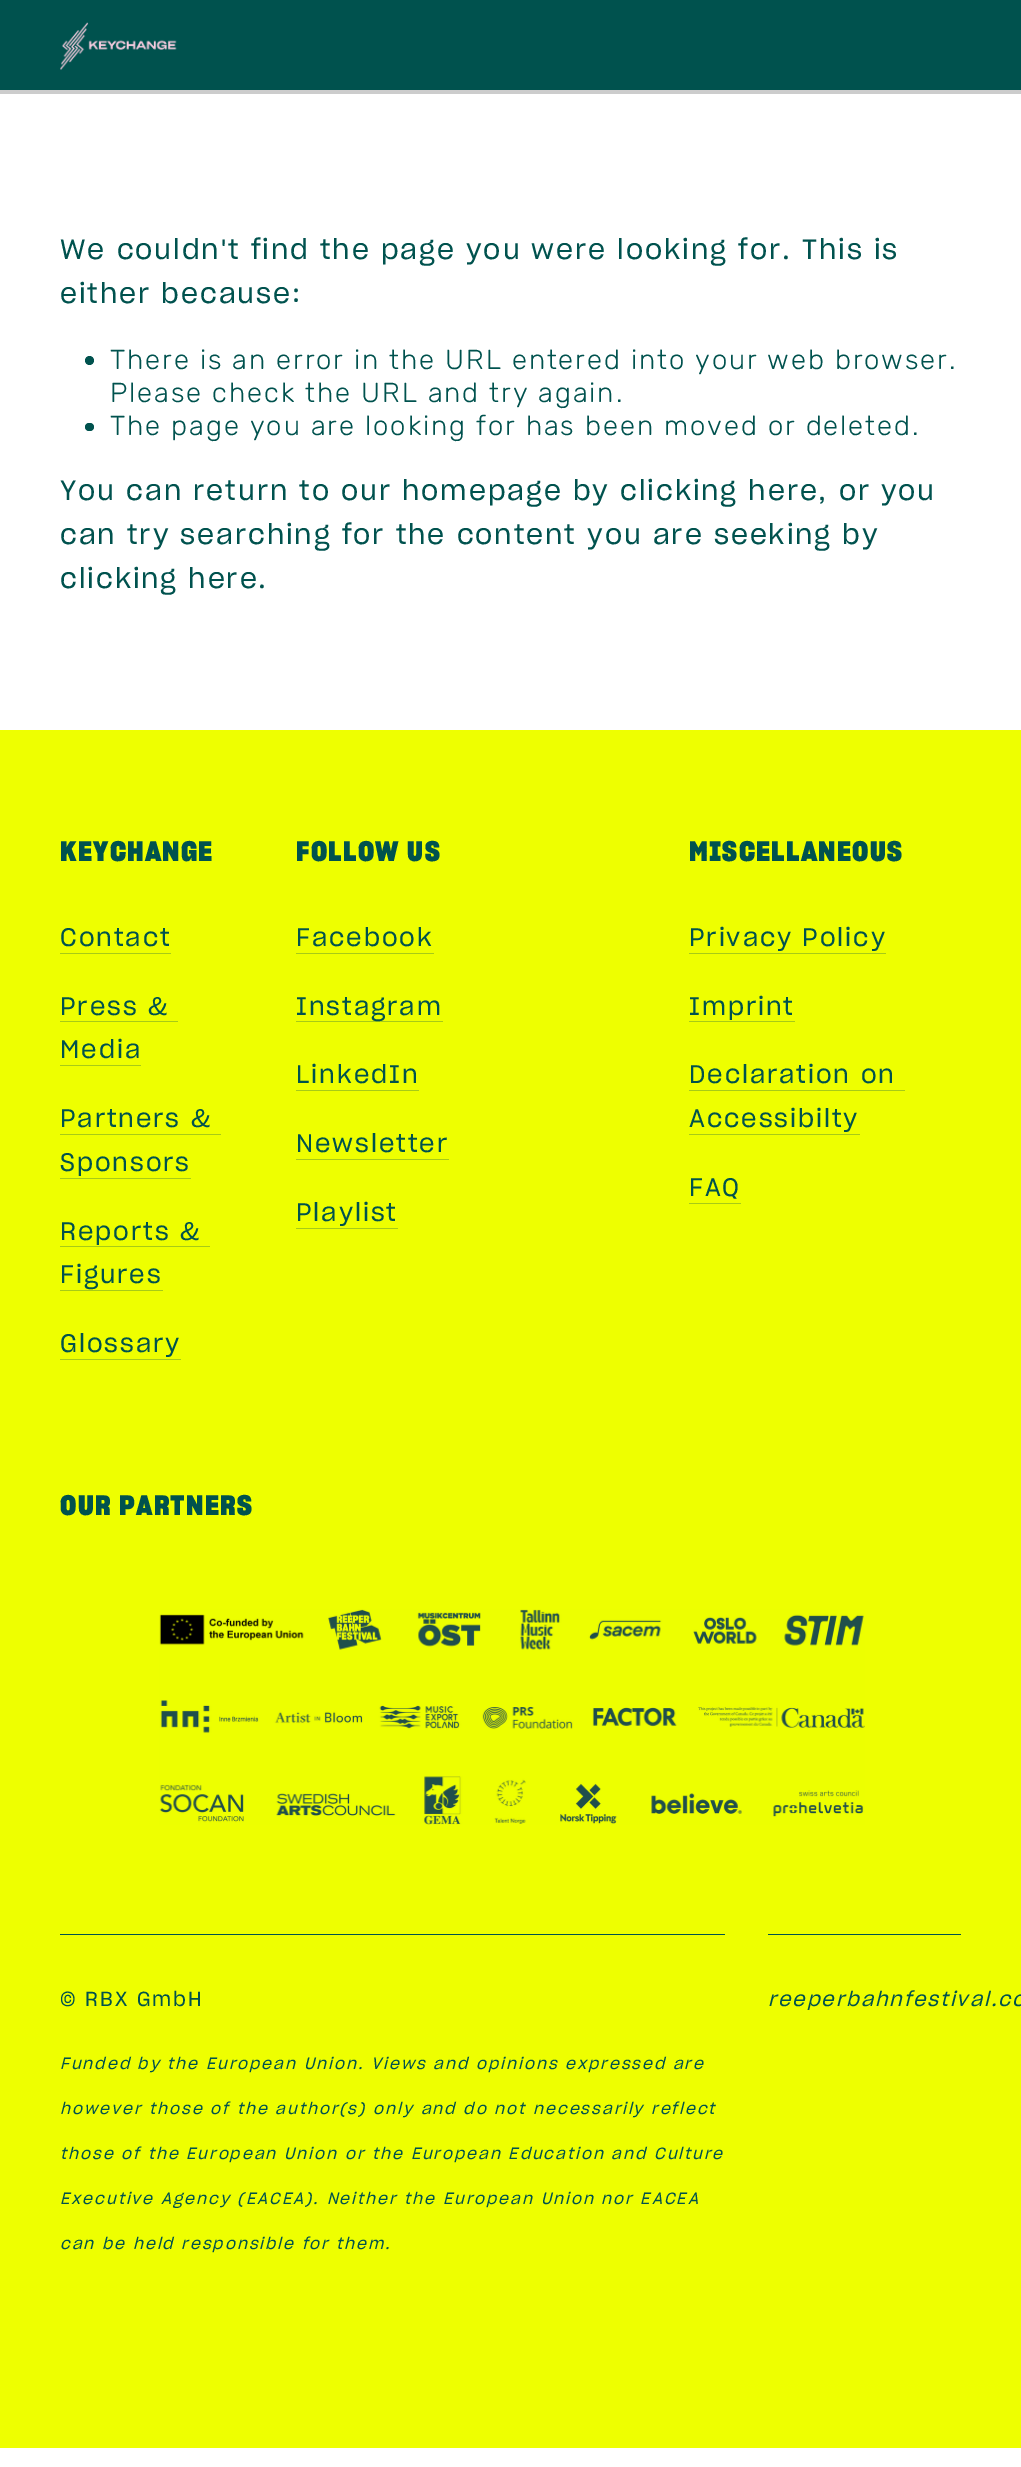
%!PS
<< /PageSize [1021 2467] >> setpagedevice
/rgb { 3 { 255 div 3 1 roll } repeat setrgbcolor } def
/font { [ exch dup neg 0 0 3 -1 roll 0 0 ] selectfont } def
/circle { newpath 0 360 arc closepath } def
/roundrect { 5 dict begin { /r /h /w /y /x } { exch def } forall
  x r add y moveto x w add y 2 copy h add r arct x w add y h add x 1 index r arct
  x y h add x y r arct x y 2 copy exch w add exch r arct closepath end } def
/picture { 5 dict begin { /h /w /y /x /name } { exch def } forall
  gsave x y translate w h scale
  w h 8 [w 0 0 h 0 0] name (r) file false 3 colorimage grestore end } def
0 2467 translate 1 -1 scale
4 setmiterlimit
238 255 0 rgb
0 0 1021 2467 rectfill
204 204 204 rgb
0 90 1021 4 rectfill
0 82 78 rgb
0 0 1021 90 rectfill
(img_01.rgb) 60 22 117 48 picture
255 255 255 rgb
0 2448 1021 19 rectfill
0 94 1021 636 rectfill
0 82 78 rgb
89.5 360.5 4.5 circle fill
85 423 9 8 4 roundrect fill
167 203 23 rgb
60 953 111 1 rectfill
60 1021 118 1 rectfill
60 1065 81 1 rectfill
60 1134 161 1 rectfill
60 1178 131 1 rectfill
60 1246 150 1 rectfill
60 1290 103 1 rectfill
60 1359 121 1 rectfill
296 953 138 1 rectfill
296 1021 147 1 rectfill
296 1090 123 1 rectfill
296 1159 153 1 rectfill
296 1228 102 1 rectfill
689 953 197 1 rectfill
689 1021 106 1 rectfill
689 1090 216 1 rectfill
689 1134 171 1 rectfill
689 1203 52 1 rectfill
(img_02.rgb) 159 1609 706 216 picture
0 82 78 rgb
60 1934 665 1 rectfill
768 1934 193 1 rectfill
/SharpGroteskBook-Regular 27.5 font
60 259 moveto 1.93 0 (We couldn't find the page you were looking for. This is) ashow
60 303 moveto 1.93 0 (either because:) ashow
/Rubik-Light 27.5 font
110 369 moveto 1.93 0 (There is an error in the URL entered into your web browser.) ashow
110 402 moveto 1.93 0 (Please check the URL and try again.) ashow
110 435 moveto 1.93 0 (The page you are looking for has been moved or deleted.) ashow
/SharpGroteskBook-Regular 27.5 font
60 500 moveto 1.93 0 (You can return to our homepage by clicking here, or you) ashow
60 544 moveto 1.93 0 (can try searching for the content you are seeking by) ashow
60 588 moveto 1.93 0 (clicking here.) ashow
/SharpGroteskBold-Bold 27.5 font
60 861 moveto 1.25 0 (KEYCHANGE) ashow
/SharpGroteskBook-Regular 25 font
60 946 moveto 1.93 0 (Contact) ashow
60 1015 moveto 1.93 0 (Press &) ashow
60 1058 moveto 1.93 0 (Media) ashow
60 1127 moveto 1.93 0 (Partners &) ashow
60 1171 moveto 1.93 0 (Sponsors) ashow
60 1240 moveto 1.93 0 (Reports &) ashow
60 1283 moveto 1.93 0 (Figures) ashow
60 1352 moveto 1.93 0 (Glossary) ashow
/SharpGroteskBold-Bold 27.5 font
296 861 moveto 1.25 0 (FOLLOW US) ashow
/SharpGroteskBook-Regular 25 font
296 946 moveto 1.93 0 (Facebook) ashow
296 1015 moveto 1.93 0 (Instagram) ashow
296 1083 moveto 1.93 0 (LinkedIn) ashow
296 1152 moveto 1.93 0 (Newsletter) ashow
296 1221 moveto 1.93 0 (Playlist) ashow
/SharpGroteskBold-Bold 27.5 font
689 861 moveto 1.25 0 (MISCELLANEOUS) ashow
/SharpGroteskBook-Regular 25 font
689 946 moveto 1.93 0 (Privacy Policy) ashow
689 1015 moveto 1.93 0 (Imprint) ashow
689 1083 moveto 1.93 0 (Declaration on) ashow
689 1127 moveto 1.93 0 (Accessibilty) ashow
689 1196 moveto 1.93 0 (FAQ) ashow
/SharpGroteskBold-Bold 27.5 font
60 1515 moveto 1.25 0 (OUR PARTNERS) ashow
/SharpGroteskBook-Regular 20 font
60 2006 moveto 1.93 0 (© RBX GmbH) ashow
/SharpGroteskBook-Italic 16 font
60 2069 moveto 1.93 0 (Funded by the European Union. Views and opinions expressed are) ashow
60 2114 moveto 1.93 0 (however those of the author\(s\) only and do not necessarily reflect) ashow
60 2159 moveto 1.93 0 (those of the European Union or the European Education and Culture) ashow
60 2204 moveto 1.93 0 (Executive Agency \(EACEA\). Neither the European Union nor EACEA) ashow
60 2249 moveto 1.93 0 (can be held responsible for them.) ashow
/SharpGroteskBook-Italic 20 font
768 2006 moveto 1.93 0 (reeperbahnfestival.co) ashow
showpage
